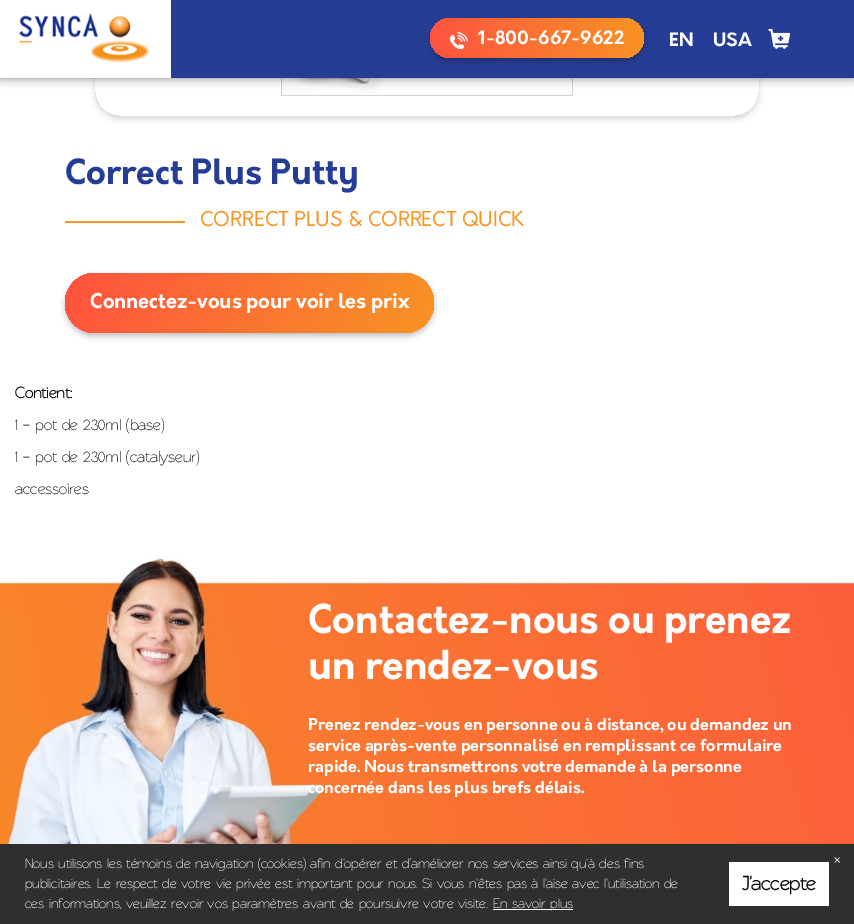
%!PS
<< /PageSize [854 924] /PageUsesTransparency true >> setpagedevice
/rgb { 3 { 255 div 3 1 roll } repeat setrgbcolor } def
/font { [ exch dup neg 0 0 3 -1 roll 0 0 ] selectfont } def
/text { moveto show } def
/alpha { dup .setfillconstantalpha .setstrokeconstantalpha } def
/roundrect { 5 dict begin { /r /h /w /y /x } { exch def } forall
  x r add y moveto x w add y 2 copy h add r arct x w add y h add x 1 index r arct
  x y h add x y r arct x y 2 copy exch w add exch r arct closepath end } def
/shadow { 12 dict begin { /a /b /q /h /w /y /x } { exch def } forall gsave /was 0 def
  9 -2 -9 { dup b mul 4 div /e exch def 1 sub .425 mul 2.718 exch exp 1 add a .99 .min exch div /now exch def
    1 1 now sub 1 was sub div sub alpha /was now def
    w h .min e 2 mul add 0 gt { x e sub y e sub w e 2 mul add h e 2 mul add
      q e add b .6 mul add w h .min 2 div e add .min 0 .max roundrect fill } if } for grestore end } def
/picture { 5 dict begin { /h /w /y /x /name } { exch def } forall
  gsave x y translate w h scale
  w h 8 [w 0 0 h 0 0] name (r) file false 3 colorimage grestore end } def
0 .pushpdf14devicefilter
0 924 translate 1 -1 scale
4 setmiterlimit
255 255 255 rgb
0 0 854 924 rectfill
gsave
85 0 moveto 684 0 rlineto 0 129 rlineto -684 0 rlineto closepath 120 -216 moveto 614 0 rlineto 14 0 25 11 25 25 rcurveto 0 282 rlineto 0 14 -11 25 -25 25 rcurveto -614 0 rlineto -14 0 -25 -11 -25 -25 rcurveto 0 -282 rlineto 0 -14 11 -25 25 -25 rcurveto closepath eoclip newpath
0 0 0 rgb
95 -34 664 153 25 3 0.16 shadow
grestore
(img_04.rgb) 281 78 292 18 picture
0 0 0 rgb
0 0 854 78 0 5 0.5 shadow
38 61 149 rgb
171 0 683 78 rectfill
255 255 255 rgb
0 0 171 78 rectfill
(img_01.rgb) 18 13 132 50 picture
0 0 0 rgb
430 21 214 40 20 3 0.25 shadow
gsave 430 18 214 40 20 roundrect clip newpath
<< /ShadingType 2 /ColorSpace /DeviceRGB /Coords [644 19 430 57] /Extend [true true] /Function << /FunctionType 2 /Domain [0 1] /C0 [0.969 0.58 0.141] /C1 [1 0.322 0.251] /N 1 >> >> shfill grestore
(img_02.rgb) 450 32 18 17 picture
(img_03.rgb) 768 29 22 20 picture
247 148 36 rgb
65 221 120 2 rectfill
0 0 0 rgb
65 276 369 60 30 3 0.25 shadow
gsave 65 273 369 60 30 roundrect clip newpath
<< /ShadingType 2 /ColorSpace /DeviceRGB /Coords [98 216 401 390] /Extend [true true] /Function << /FunctionType 2 /Domain [0 1] /C0 [1 0.322 0.251] /C1 [0.969 0.58 0.141] /N 1 >> >> shfill grestore
(img_05.rgb) 0 551 854 293 picture
308 847 132 43 21.5 3 0.25 shadow
47 47 47 rgb
0 844 854 80 rectfill
255 255 255 rgb
493 909 80 1 rectfill
729 862 100 44 rectfill
/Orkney-Bold 18 font
(1-800-667-9622) 478 44 text
(EN) 669 46 text
(USA) 713 46 text
/Orkney-Bold 34 font
38 61 149 rgb
(Correct Plus Putty) 65 184 text
/Orkney-Regular 20 font
247 148 36 rgb
(CORRECT PLUS & CORRECT QUICK) 200 226 text
/Orkney-Bold 20 font
255 255 255 rgb
(Connectez-vous pour voir les prix) 90 308 text
/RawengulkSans-Bold 16 font
0 0 0 rgb
(Contient:) 15 398 text
/RawengulkSans-Medium 16 font
(1 – pot de 230ml \(base\)) 15 430 text
(1 – pot de 230ml \(catalyseur\)) 15 462 text
(accessoires) 15 494 text
/Orkney-Bold 39 font
255 255 255 rgb
(Contactez-nous ou prenez) 308 633 text
(un rendez-vous) 308 679 text
/Orkney-Bold 16 font
(Prenez rendez-vous en personne ou à distance, ou demandez un) 308 730 text
(service après-vente personnalisé en remplissant ce formulaire) 308 751 text
(rapide. Nous transmettrons votre demande à la personne) 308 772 text
(concernée dans les plus brefs délais.) 308 793 text
/RawengulkSans-Medium 14 font
(Nous utilisons les témoins de navigation \(cookies\) afin d'opérer et d’améliorer nos services ainsi qu'à des fins) 25 868 text
(publicitaires. Le respect de votre vie privée est important pour nous. Si vous n'êtes pas à l'aise avec l'utilisation de) 25 888 text
(ces informations, veuillez revoir vos paramètres avant de poursuivre votre visite.) 25 908 text
(En savoir plus) 493 908 text
/RawengulkSans-Medium 22 font
(×) 834 867 text
/RawengulkSans-Bold 20 font
0 0 0 rgb
(J'accepte) 742 890 text
.poppdf14devicefilter showpage
